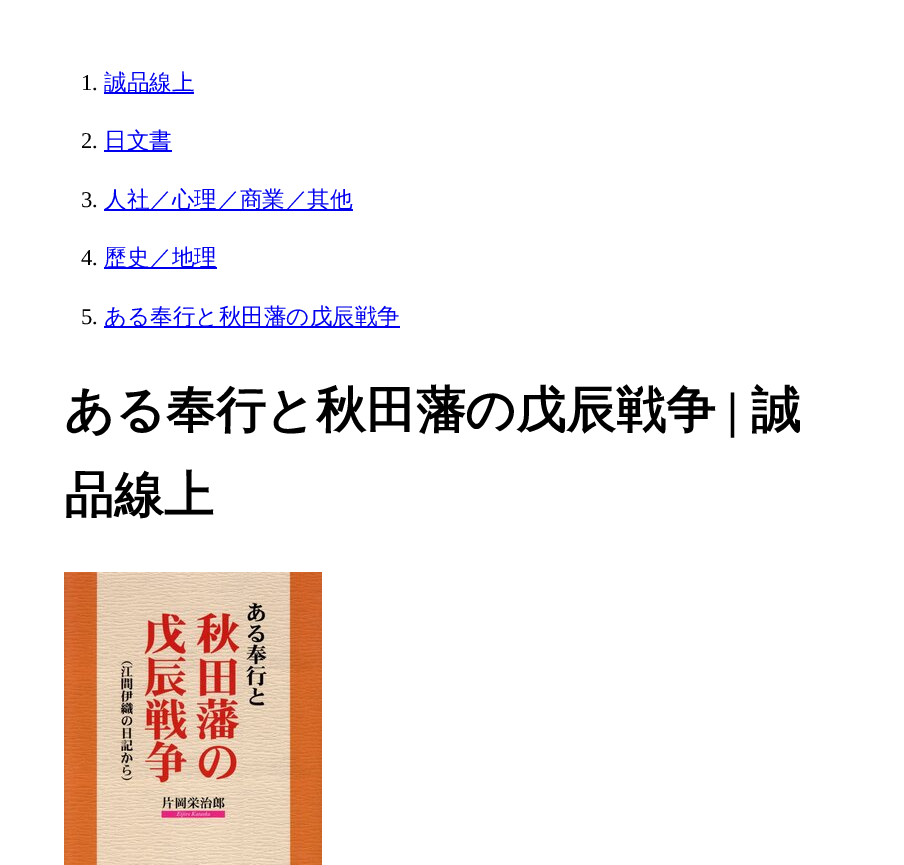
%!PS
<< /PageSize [904 865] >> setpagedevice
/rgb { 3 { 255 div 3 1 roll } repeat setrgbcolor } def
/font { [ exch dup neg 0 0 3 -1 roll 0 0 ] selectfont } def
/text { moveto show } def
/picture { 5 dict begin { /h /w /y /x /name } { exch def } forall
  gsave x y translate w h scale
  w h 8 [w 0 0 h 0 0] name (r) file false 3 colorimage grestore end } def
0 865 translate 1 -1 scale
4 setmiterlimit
255 255 255 rgb
0 0 904 865 rectfill
0 0 238 rgb
104 92 90 2 rectfill
104 150 68 2 rectfill
104 209 249 2 rectfill
104 267 113 2 rectfill
104 326 296 2 rectfill
(img_01.rgb) 64 572 258 293 picture
/LiberationSerif-Regular 22.6 font
0 0 0 rgb
(1.) 81 90 text
/WenQuanYiZenHei-Medium 22.6 font
0 0 238 rgb
(誠品線上) 104 90 text
/LiberationSerif-Regular 22.6 font
0 0 0 rgb
(2.) 81 148 text
/WenQuanYiZenHei-Medium 22.6 font
0 0 238 rgb
(日文書) 104 148 text
/LiberationSerif-Regular 22.6 font
0 0 0 rgb
(3.) 81 207 text
/WenQuanYiZenHei-Medium 22.6 font
0 0 238 rgb
(人社／心理／商業／其他) 104 207 text
/LiberationSerif-Regular 22.6 font
0 0 0 rgb
(4.) 81 265 text
/WenQuanYiZenHei-Medium 22.6 font
0 0 238 rgb
(歷史／地理) 104 265 text
/LiberationSerif-Regular 22.6 font
0 0 0 rgb
(5.) 81 324 text
/WenQuanYiZenHei-Medium 22.6 font
0 0 238 rgb
(ある奉行と秋田藩の戊辰戦争) 104 324 text
/WenQuanYiZenHei-Bold 49.75 font
0 0 0 rgb
(ある奉行と秋田藩の戊辰戦争) 64 427 text
/LiberationSerif-Bold 49.75 font
(|) 727 427 text
/WenQuanYiZenHei-Bold 49.75 font
(誠) 751 427 text
(品線上) 64 512 text
showpage
